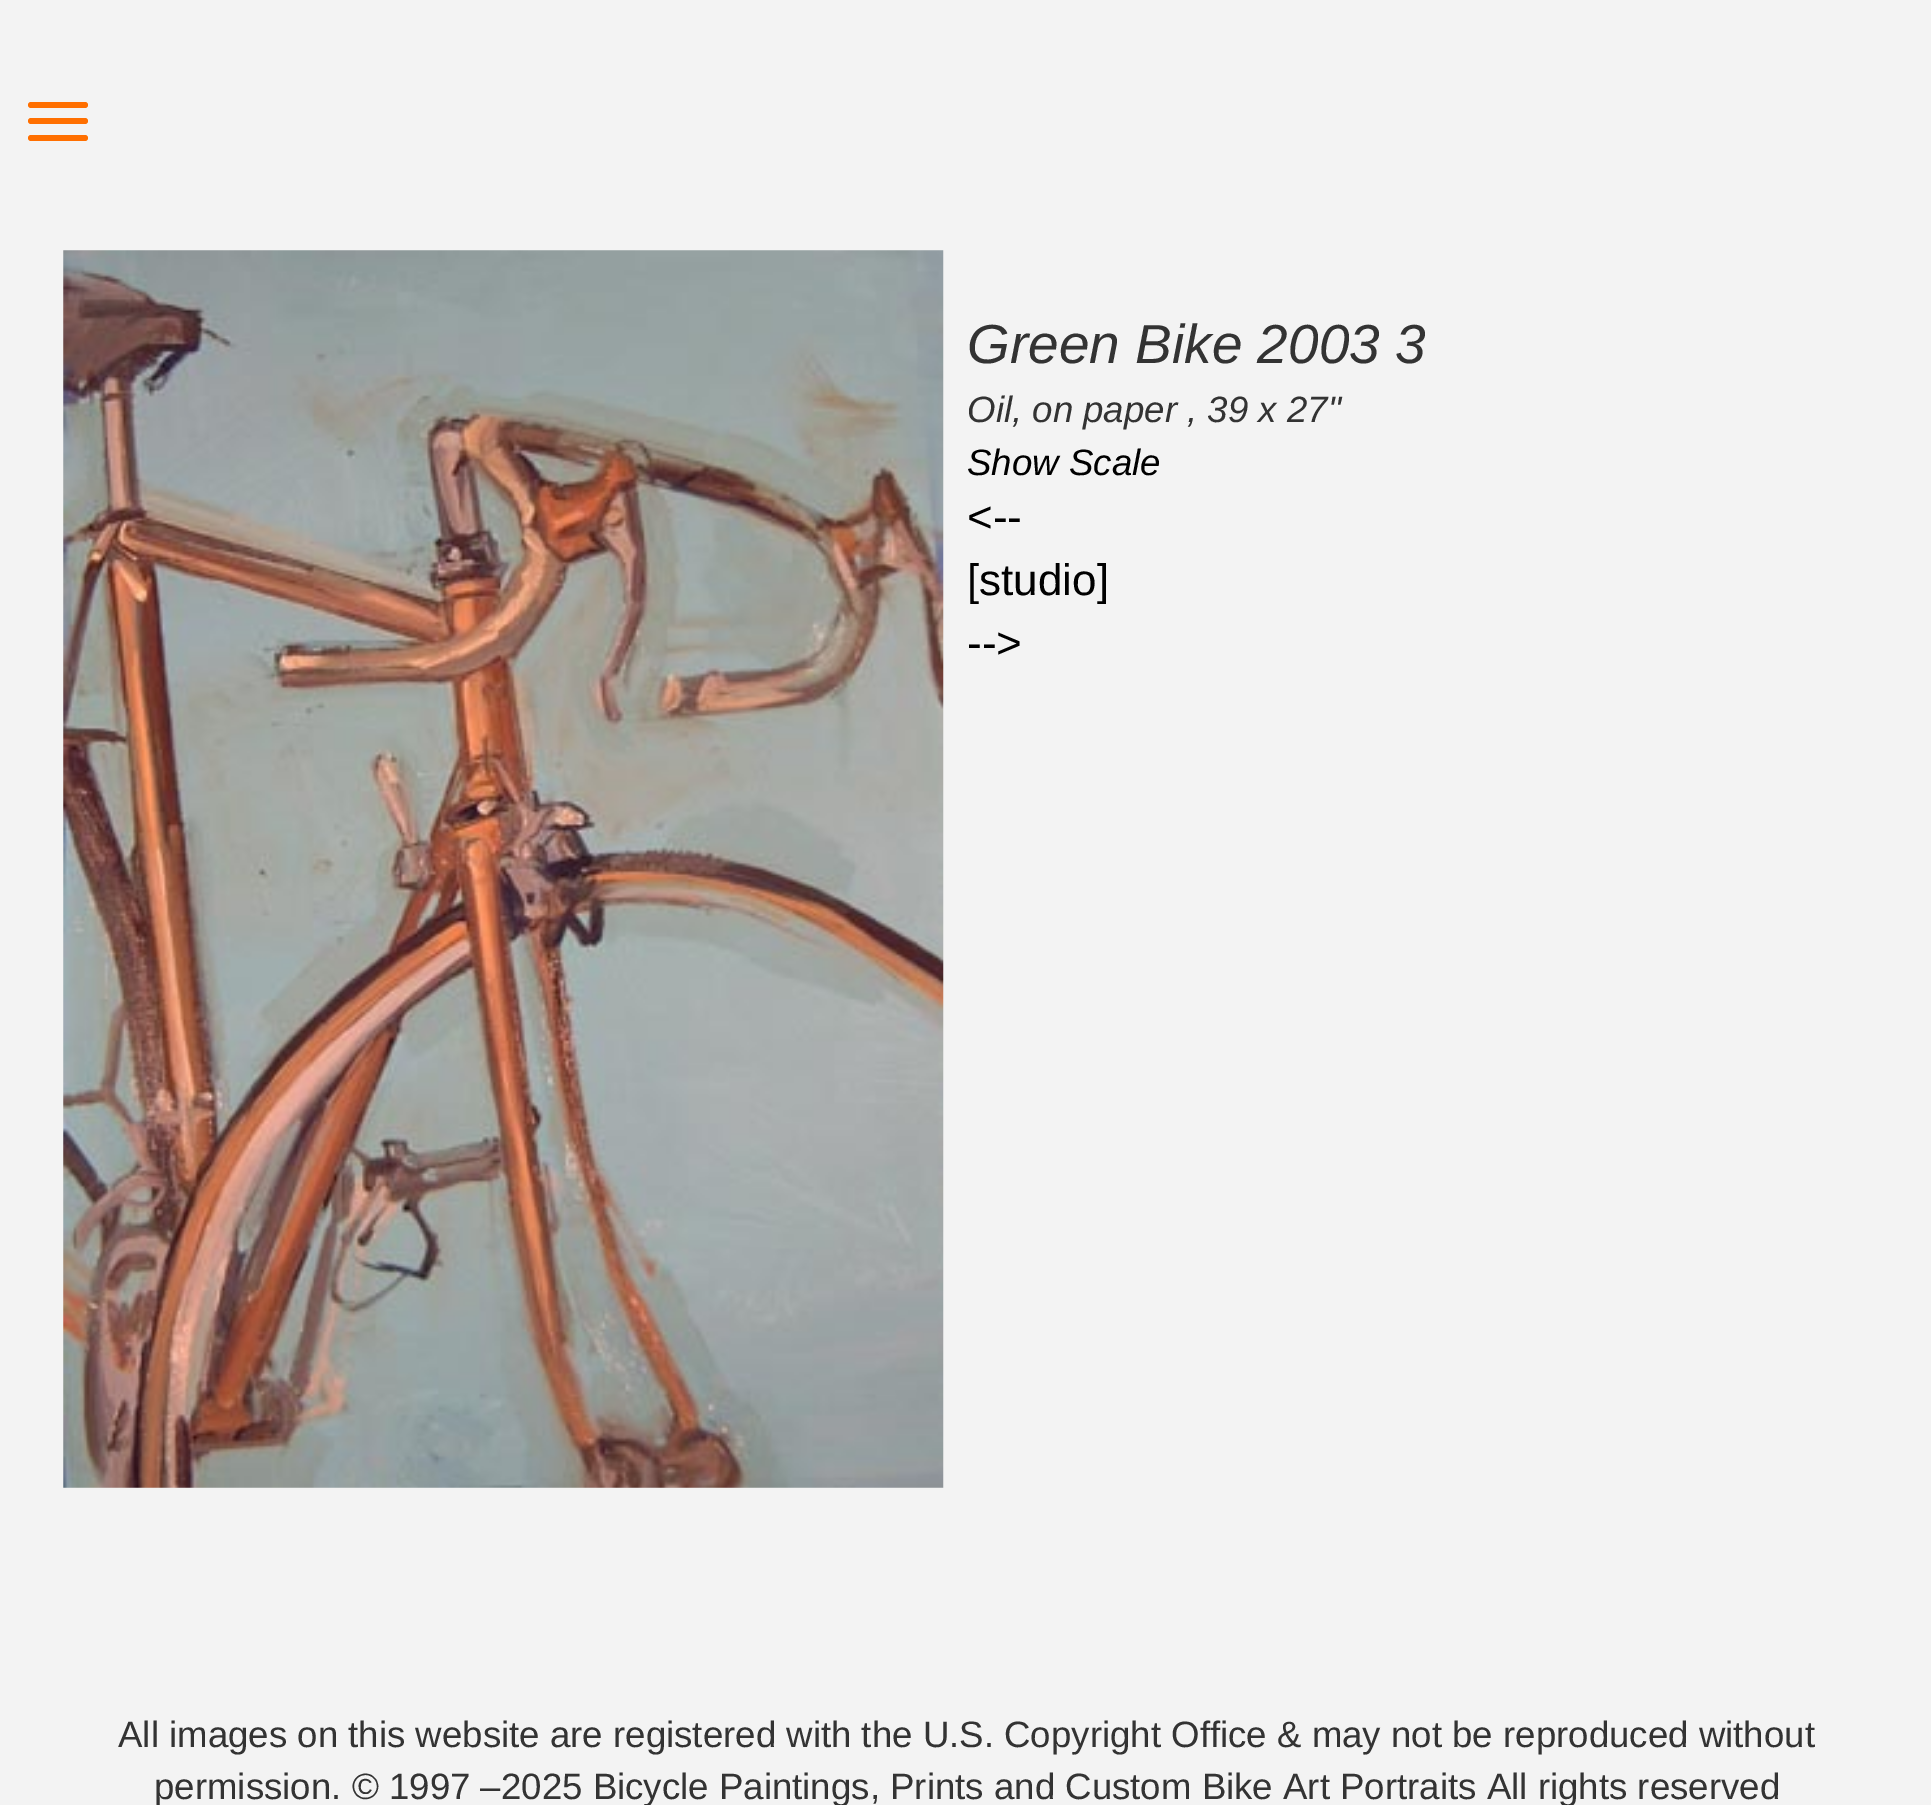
%!PS
<< /PageSize [1931 1805] >> setpagedevice
/rgb { 3 { 255 div 3 1 roll } repeat setrgbcolor } def
/font { [ exch dup neg 0 0 3 -1 roll 0 0 ] selectfont } def
/text { moveto show } def
/roundrect { 5 dict begin { /r /h /w /y /x } { exch def } forall
  x r add y moveto x w add y 2 copy h add r arct x w add y h add x 1 index r arct
  x y h add x y r arct x y 2 copy exch w add exch r arct closepath end } def
/picture { 5 dict begin { /h /w /y /x /name } { exch def } forall
  gsave x y translate w h scale
  w h 8 [w 0 0 h 0 0] name (r) file false 3 colorimage grestore end } def
0 1805 translate 1 -1 scale
4 setmiterlimit
243 243 243 rgb
0 0 1931 1805 rectfill
255 111 0 rgb
28 102 60 6 3 roundrect fill
28 118 60 6 3 roundrect fill
28 135 60 6 3 roundrect fill
(img_01.rgb) 63 250 881 1238 picture
/LiberationSans-Italic 55 font
51 51 51 rgb
(Green Bike 2003 3) 967 363 text
/LiberationSans-Italic 36.65 font
(Oil, on paper , 39 x 27") 967 422 text
0 0 0 rgb
(Show Scale) 967 475 text
/LiberationSans-Regular 44 font
(<--) 967 532 text
([studio]) 967 595 text
(-->) 967 658 text
/LiberationSans-Regular 36.65 font
51 51 51 rgb
(All images on this website are registered with the U.S. Copyright Office & may not be reproduced without) 118 1747 text
(permission. © 1997 –2025 Bicycle Paintings, Prints and Custom Bike Art Portraits All rights reserved) 154 1799 text
showpage
